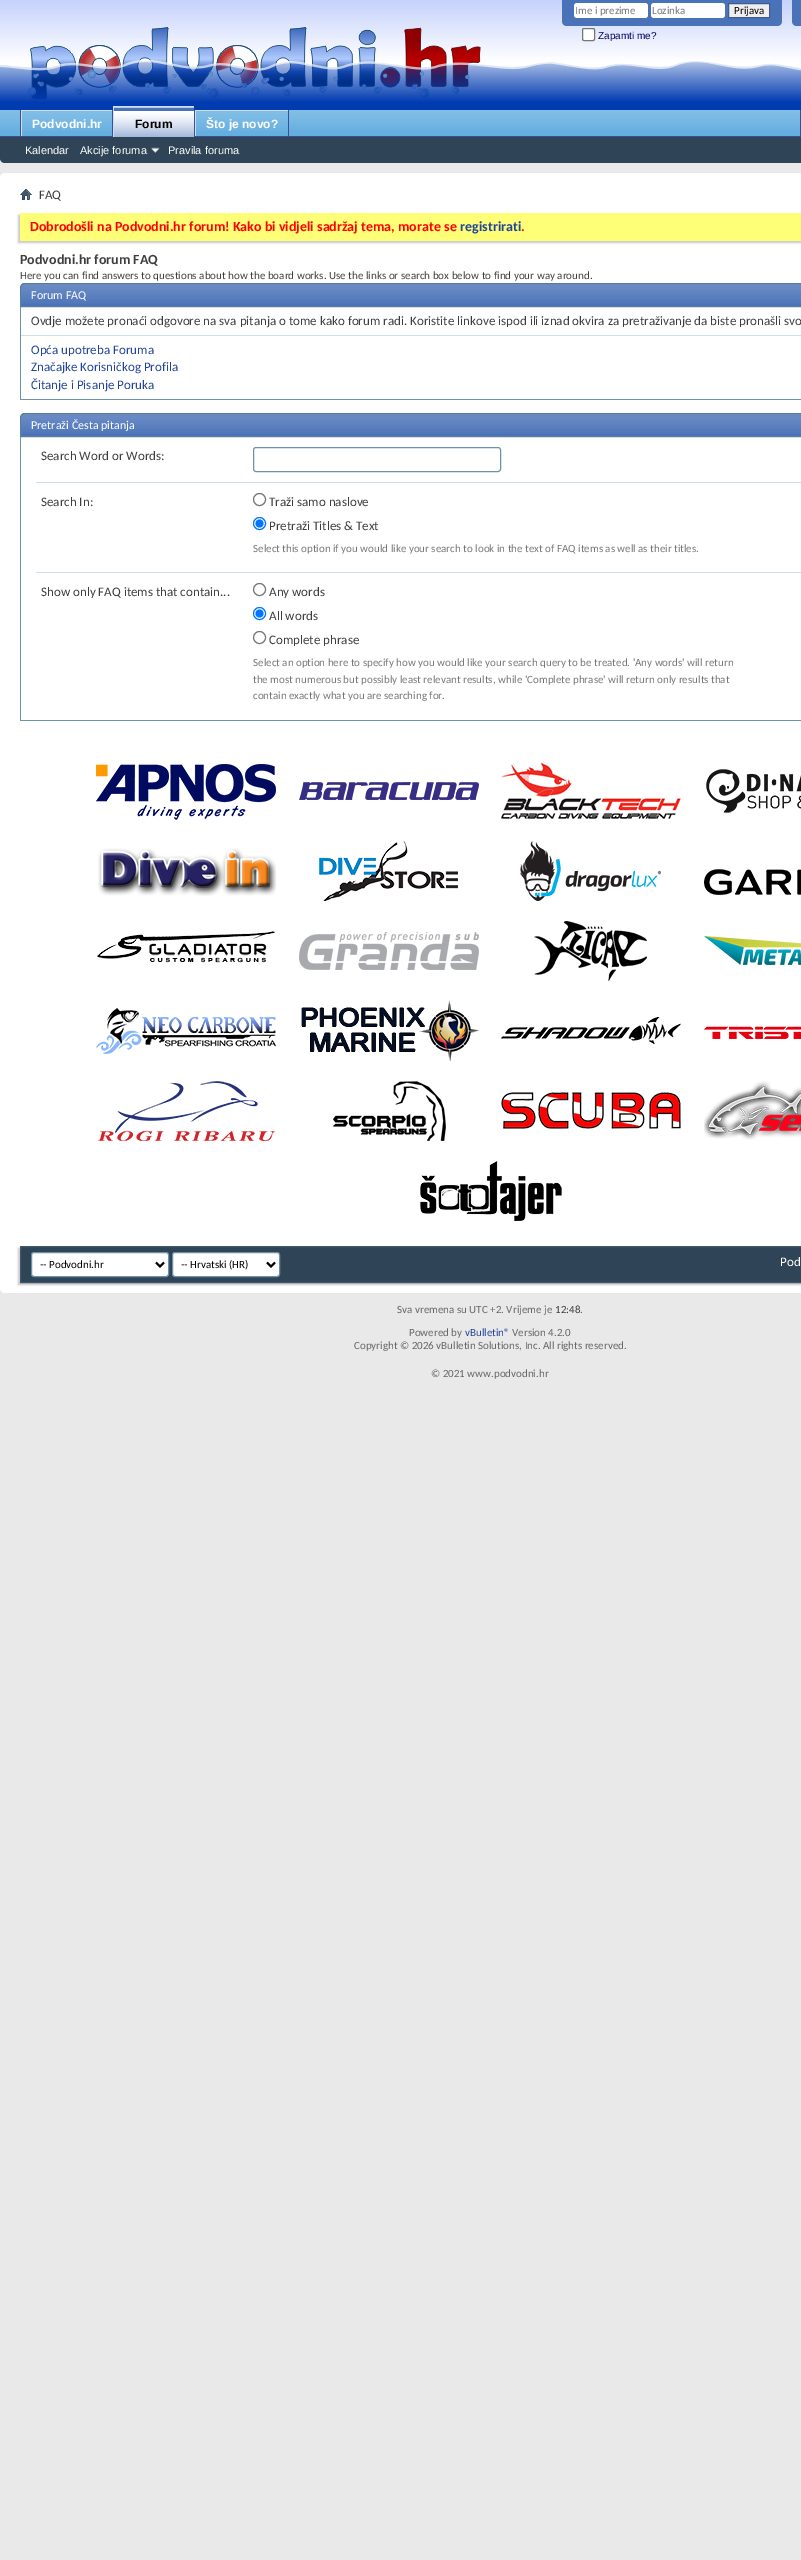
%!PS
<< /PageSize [801 2560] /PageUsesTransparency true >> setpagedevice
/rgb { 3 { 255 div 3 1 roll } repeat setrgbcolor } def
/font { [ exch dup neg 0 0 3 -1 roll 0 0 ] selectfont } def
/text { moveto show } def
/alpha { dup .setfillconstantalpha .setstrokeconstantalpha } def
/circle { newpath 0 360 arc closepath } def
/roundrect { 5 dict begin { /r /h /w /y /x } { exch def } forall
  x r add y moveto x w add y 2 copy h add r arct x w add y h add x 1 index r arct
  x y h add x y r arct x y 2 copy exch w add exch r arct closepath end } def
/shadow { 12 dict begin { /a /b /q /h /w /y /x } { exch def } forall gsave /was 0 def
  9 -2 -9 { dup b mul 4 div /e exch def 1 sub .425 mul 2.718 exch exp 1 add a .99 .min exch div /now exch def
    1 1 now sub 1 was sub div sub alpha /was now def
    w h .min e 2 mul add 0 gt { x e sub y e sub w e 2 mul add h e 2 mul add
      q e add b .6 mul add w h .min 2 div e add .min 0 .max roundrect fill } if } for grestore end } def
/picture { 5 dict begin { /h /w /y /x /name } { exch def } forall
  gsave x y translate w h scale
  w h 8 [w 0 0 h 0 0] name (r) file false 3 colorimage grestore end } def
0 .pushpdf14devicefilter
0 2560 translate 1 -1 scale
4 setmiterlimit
233 233 233 rgb
0 0 801 2560 rectfill
(img_01.rgb) 0 0 801 110 picture
(img_02.rgb) 0 27 481 73 picture
74 114 184 rgb
562 0 moveto 220 0 rlineto 0 21 rlineto 0 3 -2 5 -5 5 rcurveto -210 0 rlineto -3 0 -5 -2 -5 -5 rcurveto closepath fill
255 255 255 rgb
574 3 74 15 3 roundrect fill
651 3 74 15 3 roundrect fill
239 239 239 rgb
728.5 3.5 moveto 41 0 rlineto 0 14 rlineto -41 0 rlineto closepath gsave fill grestore
65 93 141 rgb
stroke
255 255 255 rgb
582.5 28.5 12 12 1.5 roundrect gsave fill grestore
118 118 118 rgb
stroke
74 114 184 rgb
792 0 moveto 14 0 rlineto 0 21 rlineto 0 3 -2 5 -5 5 rcurveto -4 0 rlineto -3 0 -5 -2 -5 -5 rcurveto closepath fill
47 68 86 rgb
0 110 moveto 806 0 rlineto 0 48 rlineto 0 3 -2 5 -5 5 rcurveto -796 0 rlineto -3 0 -5 -2 -5 -5 rcurveto closepath fill
101 175 224 rgb
0 110 800 26 rectfill
(img_03.rgb) 0 110 800 20 picture
58 79 151 rgb
194 110 1 26 rectfill
288 110 1 27 rectfill
206 223 235 rgb
195 110 93 1 rectfill
195 110 1 27 rectfill
58 79 151 rgb
112 110 1 27 rectfill
20 110 1 27 rectfill
206 223 235 rgb
21 110 91 1 rectfill
21 110 1 27 rectfill
58 79 151 rgb
0 136 801 1 rectfill
74 114 184 rgb
114 107 80 30 rectfill
(img_04.rgb) 114 107 80 30 picture
206 223 235 rgb
113 106 81 1 rectfill
113 106 1 31 rectfill
(img_05.rgb) 151 147 9 6 picture
101 175 224 rgb
196 111 92 19 rectfill
(img_06.rgb) 196 111 92 20 picture
22 111 90 19 rectfill
(img_07.rgb) 22 111 90 20 picture
58 79 151 rgb
800 110 1 26 rectfill
255 255 255 rgb
0 173 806 1120 5 roundrect fill
(img_08.rgb) 20 189 12 11 picture
200 200 200 rgb
18 215 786 28 0 1 1 shadow
255 255 119 rgb
20 213 781 28 rectfill
74 114 184 rgb
25 283 moveto 776 0 rlineto 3 0 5 2 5 5 rcurveto 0 19 rlineto -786 0 rlineto 0 -19 rlineto 0 -3 2 -5 5 -5 rcurveto closepath fill
(img_09.rgb) 20 284 781 20 picture
90 127 151 rgb
25 283.5 moveto 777 0 rlineto 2.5 0 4.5 2 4.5 4.5 rcurveto 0 18.5 rlineto -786 0 rlineto 0 -18.5 rlineto 0 -2.5 2 -4.5 4.5 -4.5 rcurveto closepath stroke
107 145 171 rgb
20 399 781 1 rectfill
20 307 1 93 rectfill
206 223 235 rgb
21 335 780 1 rectfill
74 114 184 rgb
25 413 moveto 776 0 rlineto 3 0 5 2 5 5 rcurveto 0 19 rlineto -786 0 rlineto 0 -19 rlineto 0 -3 2 -5 5 -5 rcurveto closepath fill
(img_09.rgb) 20 414 781 20 picture
90 127 151 rgb
25 413.5 moveto 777 0 rlineto 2.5 0 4.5 2 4.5 4.5 rcurveto 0 18.5 rlineto -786 0 rlineto 0 -18.5 rlineto 0 -2.5 2 -4.5 4.5 -4.5 rcurveto closepath stroke
107 145 171 rgb
20 720 781 1 rectfill
20 437 1 284 rectfill
253.5 447.5 247 24 2.5 roundrect stroke
206 223 235 rgb
36 482 765 1 rectfill
118 118 118 rgb
259.5 499.5 6 circle stroke
0 117 255 rgb
259.5 523.5 6 circle stroke
259.5 523.5 4 circle fill
206 223 235 rgb
36 572 765 1 rectfill
118 118 118 rgb
259.5 589.5 6 circle stroke
0 117 255 rgb
259.5 613.5 6 circle stroke
259.5 613.5 4 circle fill
118 118 118 rgb
259.5 637.5 6 circle stroke
(img_10.rgb) 96 764 180 56 picture
(img_11.rgb) 299 782 180 18 picture
(img_12.rgb) 501 762 180 57 picture
(img_13.rgb) 706 769 95 44 picture
(img_14.rgb) 98 848 178 48 picture
(img_15.rgb) 319 841 139 60 picture
(img_16.rgb) 520 841 141 60 picture
(img_17.rgb) 704 869 97 26 picture
(img_18.rgb) 97 931 178 32 picture
(img_19.rgb) 299 932 180 38 picture
(img_20.rgb) 534 921 113 60 picture
(img_21.rgb) 704 936 97 29 picture
(img_22.rgb) 96 1008 180 46 picture
(img_23.rgb) 301 1001 178 60 picture
(img_24.rgb) 501 1017 180 27 picture
(img_25.rgb) 704 1026 97 13 picture
(img_26.rgb) 98 1081 177 60 picture
(img_27.rgb) 333 1081 113 60 picture
(img_28.rgb) 501 1092 180 37 picture
(img_29.rgb) 704 1081 97 59 picture
(img_30.rgb) 420 1161 142 60 picture
200 200 200 rgb
18 1248 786 37 0 1 1 shadow
47 68 86 rgb
20.5 1246.5 moveto 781 0 rlineto 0 36 rlineto -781 0 rlineto closepath gsave fill grestore
66 87 105 rgb
stroke
255 255 255 rgb
31.5 1252.5 137 24 2.5 roundrect gsave fill grestore
107 145 171 rgb
stroke
0 0 0 rgb
2 setlinewidth
156 1262.5 moveto 4 4 rlineto 4 -4 rlineto stroke
255 255 255 rgb
172.5 1252.5 107 24 2.5 roundrect gsave fill grestore
107 145 171 rgb
1 setlinewidth
stroke
0 0 0 rgb
2 setlinewidth
267 1262.5 moveto 4 4 rlineto 4 -4 rlineto stroke
/Carlito-Regular 11 font
119 119 119 rgb
(Ime i prezime) 575 14 text
(Lozinka) 652 14 text
0 0 0 rgb
(Prijava) 734 14 text
/LiberationSans-Regular 10 font
0 0 102 rgb
(Zapamti me?) 598 39 text
/LiberationSans-Bold 12 font
0 0 0 rgb
(Forum) 135 128 text
/LiberationSans-Regular 11 font
255 255 255 rgb
(Kalendar) 25 154 text
(Akcije foruma) 80 154 text
(Pravila foruma) 168 154 text
/LiberationSans-Bold 12 font
(Što je novo?) 206 128 text
(Podvodni.hr) 32 128 text
/Carlito-Regular 13 font
62 62 62 rgb
(FAQ) 39 199 text
/Carlito-Bold 14 font
255 0 0 rgb
(Dobrodošli na Podvodni.hr forum! Kako bi vidjeli sadržaj tema, morate se) 30 231 text
34 68 153 rgb
(registrirati) 460 231 text
255 0 0 rgb
(.) 521 231 text
62 62 62 rgb
(Podvodni.hr forum FAQ) 20 264 text
/Carlito-Regular 11.05 font
(Here you can find answers to questions about how the board works. Use the links or search box below to find your way around.) 20 279 text
/Carlito-Regular 12 font
255 255 255 rgb
(Forum FAQ) 31 299 text
/Carlito-Regular 13 font
62 62 62 rgb
(Ovdje možete pronaći odgovore na sva pitanja o tome kako forum radi. Koristite linkove ispod ili iznad okvira za pretraživanje da biste pronašli svo) 31 325 text
34 68 153 rgb
(Opća upotreba Foruma) 31 354 text
(Značajke Korisničkog Profila) 31 371 text
(Čitanje i Pisanje Poruka) 31 389 text
/Carlito-Regular 12 font
255 255 255 rgb
(Pretraži Česta pitanja) 31 429 text
/Carlito-Regular 13 font
62 62 62 rgb
(Search Word or Words:) 41 460 text
(Search In:) 41 506 text
(Traži samo naslove) 269 506 text
(Pretraži Titles & Text) 269 530 text
/Carlito-Regular 11 font
119 119 119 rgb
(Select this option if you would like your search to look in the text of FAQ items as well as their titles.) 253 552 text
/Carlito-Regular 13 font
62 62 62 rgb
(Show only FAQ items that contain...) 41 596 text
(Any words) 269 596 text
(All words) 269 620 text
(Complete phrase) 269 644 text
/Carlito-Regular 11 font
119 119 119 rgb
(Select an option here to specify how you would like your search query to be treated. 'Any words' will return) 253 666 text
(the most numerous but possibly least relevant results, while 'Complete phrase' will return only results that) 253 683 text
(contain exactly what you are searching for.) 253 699 text
0 0 0 rgb
(-- Podvodni.hr) 40 1268 text
(-- Hrvatski \(HR\)) 181 1268 text
/Carlito-Regular 13 font
255 255 255 rgb
(Pod) 780 1266 text
/Carlito-Regular 11 font
102 102 102 rgb
(Sva vremena su UTC +2. Vrijeme je) 397 1313 text
62 62 62 rgb
(12:48) 555 1313 text
102 102 102 rgb
(.) 580 1313 text
(Powered by) 409 1336 text
34 68 153 rgb
(vBulletin®) 465 1336 text
102 102 102 rgb
(Version 4.2.0) 512 1336 text
(Copyright © 2026 vBulletin Solutions, Inc. All rights reserved.) 354 1349 text
(© 2021 www.podvodni.hr) 431 1377 text
.poppdf14devicefilter showpage
